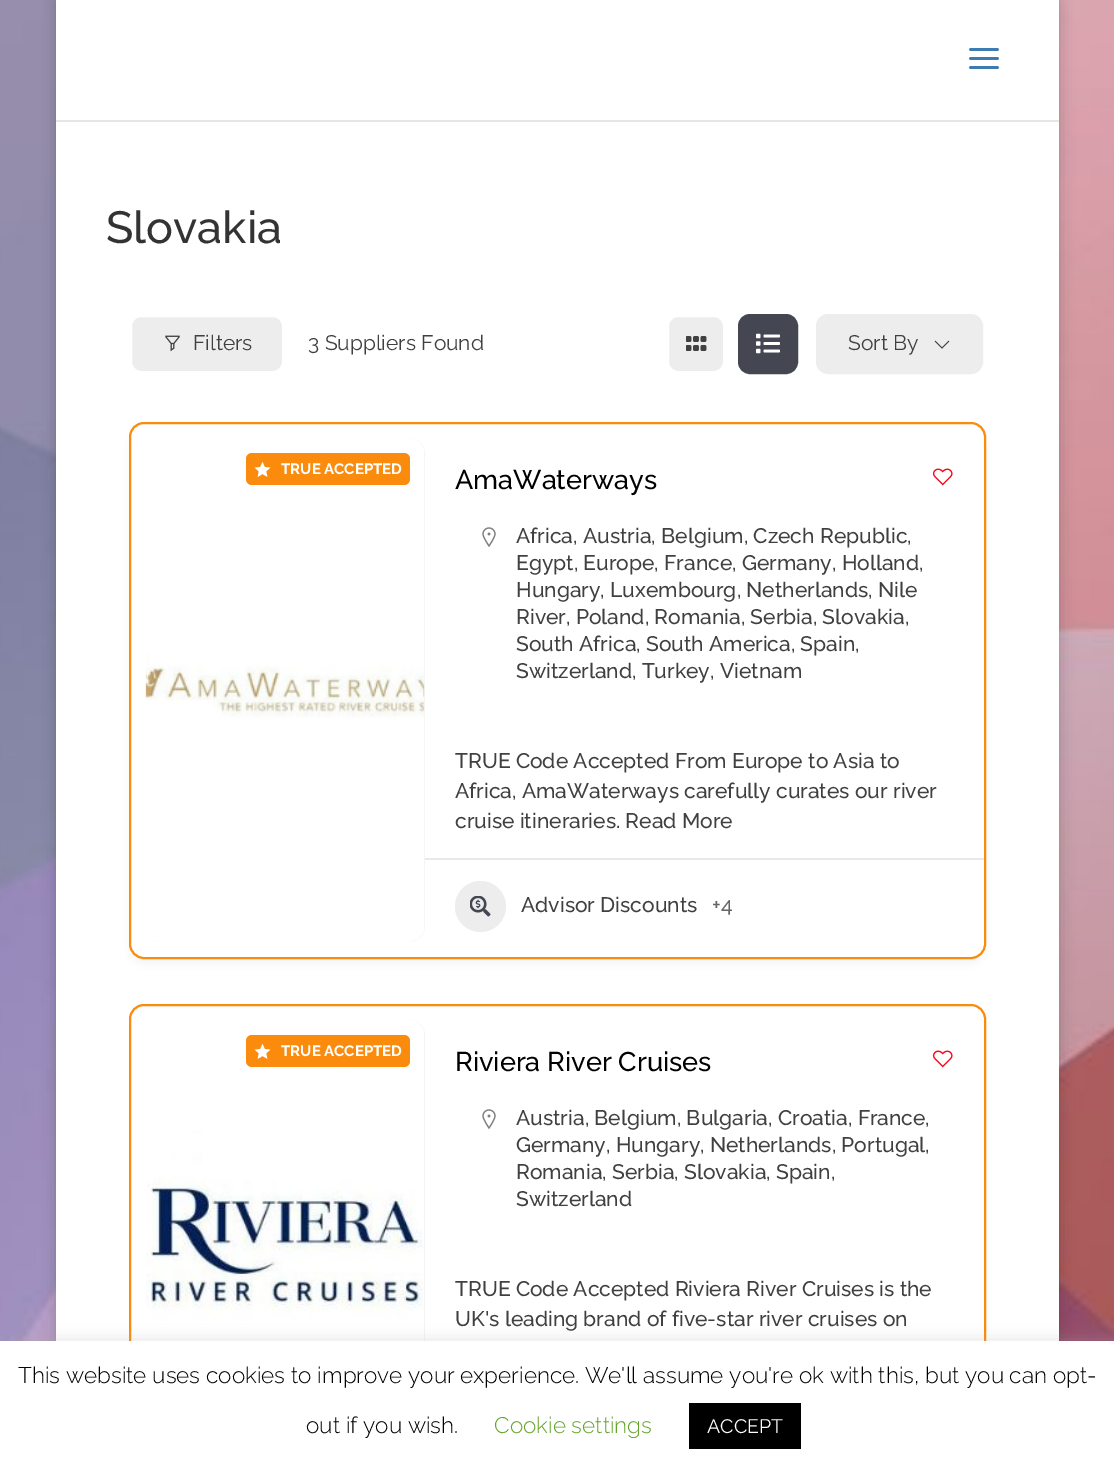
%!PS
<< /PageSize [1114 1474] /PageUsesTransparency true >> setpagedevice
/rgb { 3 { 255 div 3 1 roll } repeat setrgbcolor } def
/font { [ exch dup neg 0 0 3 -1 roll 0 0 ] selectfont } def
/text { moveto show } def
/alpha { dup .setfillconstantalpha .setstrokeconstantalpha } def
/circle { newpath 0 360 arc closepath } def
/roundrect { 5 dict begin { /r /h /w /y /x } { exch def } forall
  x r add y moveto x w add y 2 copy h add r arct x w add y h add x 1 index r arct
  x y h add x y r arct x y 2 copy exch w add exch r arct closepath end } def
/shadow { 12 dict begin { /a /b /q /h /w /y /x } { exch def } forall gsave /was 0 def
  9 -2 -9 { dup b mul 4 div /e exch def 1 sub .425 mul 2.718 exch exp 1 add a .99 .min exch div /now exch def
    1 1 now sub 1 was sub div sub alpha /was now def
    w h .min e 2 mul add 0 gt { x e sub y e sub w e 2 mul add h e 2 mul add
      q e add b .6 mul add w h .min 2 div e add .min 0 .max roundrect fill } if } for grestore end } def
/picture { 5 dict begin { /h /w /y /x /name } { exch def } forall
  gsave x y translate w h scale
  w h 8 [w 0 0 h 0 0] name (r) file false 3 colorimage grestore end } def
0 .pushpdf14devicefilter
0 1474 translate 1 -1 scale
4 setmiterlimit
255 255 255 rgb
0 0 1114 1474 rectfill
(img_01.rgb) 0 0 1114 1341 picture
0 0 0 rgb
56 0 1003 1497 0 7.5 0.2 shadow
230 230 230 rgb
56 120 1003 2 rectfill
255 255 255 rgb
56 0 1003 120 rectfill
(img_02.rgb) 969 48 30 21 picture
56 122 1003 1219 rectfill
237 237 237 rgb
130.5 315.5 153 57 10.5 roundrect gsave fill grestore
255 255 255 rgb
3 setlinewidth
stroke
(img_03.rgb) 165 335 15 17 picture
237 237 237 rgb
667.5 315.5 57 57 10.5 roundrect gsave fill grestore
255 255 255 rgb
stroke
(img_04.rgb) 686 336 21 15 picture
68 71 82 rgb
739.5 315.5 57 57 10.5 roundrect gsave fill grestore
stroke
(img_05.rgb) 756 333 24 21 picture
237 237 237 rgb
817 315 165 58 11 roundrect gsave fill grestore
2 setlinewidth
stroke
(img_06.rgb) 934 340 16 9 picture
0 0 0 rgb
129 428 857 537 15 4.5 0.04 shadow
255 255 255 rgb
130 423 855 535 14 roundrect gsave fill grestore
250 139 12 rgb
stroke
244 244 244 rgb
146 438 279 504 15 roundrect fill
(img_07.rgb) 145 438 280 504 picture
250 139 12 rgb
246 453 164 32 6 roundrect fill
(img_08.rgb) 254 461 17 16 picture
(img_09.rgb) 932 468 21 18 picture
(img_10.rgb) 482 527 14 21 picture
233 233 233 rgb
425 858 559 2 rectfill
237 237 237 rgb
480.5 906.5 25.5 circle fill
(img_11.rgb) 470 896 21 21 picture
255 255 255 rgb
130 1005 855 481 14 roundrect gsave fill grestore
250 139 12 rgb
stroke
244 244 244 rgb
146 1020 279 450 15 roundrect fill
(img_12.rgb) 146 1020 278 321 picture
250 139 12 rgb
246 1035 164 32 6 roundrect fill
(img_08.rgb) 254 1043 17 16 picture
(img_09.rgb) 932 1050 21 18 picture
(img_10.rgb) 482 1109 14 21 picture
172 171 171 rgb
0 1340 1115 133 0 7.5 0.3 shadow
255 255 255 rgb
0 1341 1114 133 rectfill
0 0 0 rgb
689 1403 112 46 rectfill
/Raleway-Medium 45 font
51 51 51 rgb
(Slovakia) 106 243 text
/Raleway-Regular 21 font
64 64 64 rgb
(Filters) 193 350 text
(3 Suppliers Found) 308 350 text
(Sort By) 848 350 text
/Raleway-Bold 15 font
255 255 255 rgb
(TRUE ACCEPTED) 281 474 text
/Raleway-Medium 27 font
0 0 0 rgb
(AmaWaterways) 455 489 text
/Raleway-Medium 21 font
64 64 64 rgb
(Africa, Austria, Belgium, Czech Republic,) 516 543 text
(Egypt, Europe, France, Germany, Holland,) 516 570 text
(Hungary, Luxembourg, Netherlands, Nile) 516 597 text
(River, Poland, Romania, Serbia, Slovakia,) 516 624 text
(South Africa, South America, Spain,) 516 651 text
(Switzerland, Turkey, Vietnam) 516 678 text
(TRUE Code Accepted From Europe to Asia to) 455 768 text
(Africa, AmaWaterways carefully curates our river) 455 798 text
(cruise itineraries. Read More) 455 828 text
(Advisor Discounts) 521 912 text
102 102 102 rgb
(+4) 712 912 text
/Raleway-Bold 15 font
255 255 255 rgb
(TRUE ACCEPTED) 281 1056 text
/Raleway-Medium 27 font
0 0 0 rgb
(Riviera River Cruises) 455 1071 text
/Raleway-Medium 21 font
64 64 64 rgb
(Austria, Belgium, Bulgaria, Croatia, France,) 516 1125 text
(Germany, Hungary, Netherlands, Portugal,) 516 1152 text
(Romania, Serbia, Slovakia, Spain,) 516 1179 text
(Switzerland) 516 1206 text
(TRUE Code Accepted Riviera River Cruises is the) 455 1296 text
(UK's leading brand of five-star river cruises on) 455 1326 text
/Raleway-Light 22.5 font
0 0 0 rgb
(This website uses cookies to improve your experience. We'll assume you're ok with this, but you can opt-) 18 1383 text
(out if you wish.) 306 1433 text
98 163 41 rgb
(Cookie settings) 494 1433 text
/Raleway-Regular 19.5 font
255 255 255 rgb
(ACCEPT) 707 1433 text
.poppdf14devicefilter showpage
